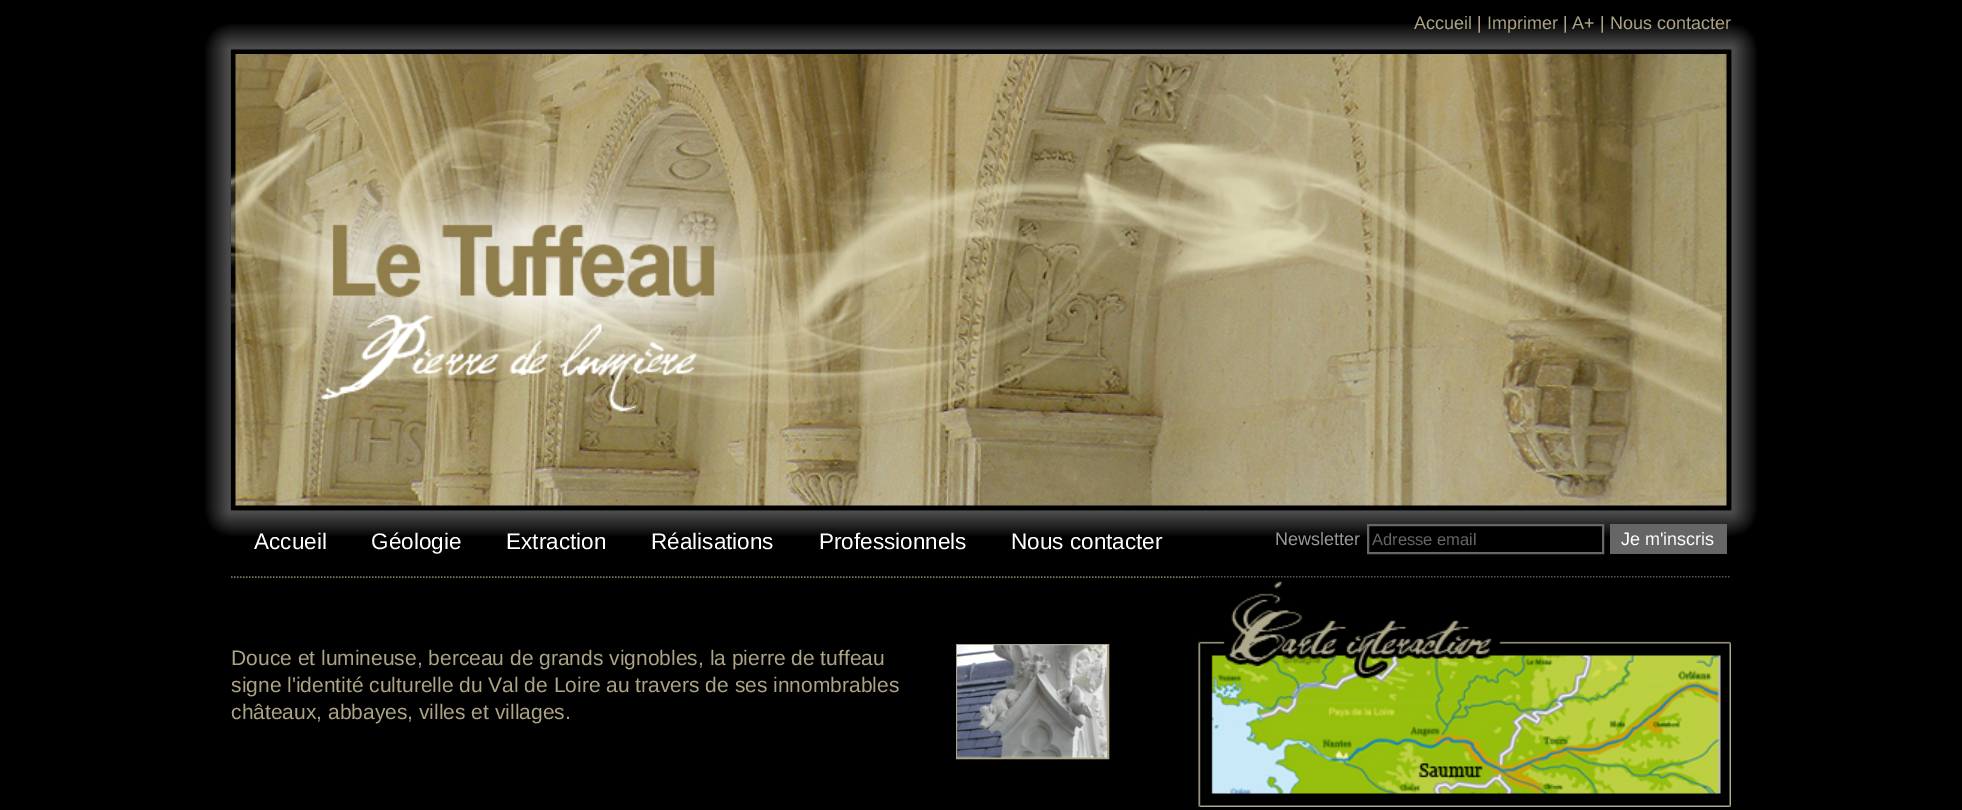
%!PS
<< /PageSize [1962 810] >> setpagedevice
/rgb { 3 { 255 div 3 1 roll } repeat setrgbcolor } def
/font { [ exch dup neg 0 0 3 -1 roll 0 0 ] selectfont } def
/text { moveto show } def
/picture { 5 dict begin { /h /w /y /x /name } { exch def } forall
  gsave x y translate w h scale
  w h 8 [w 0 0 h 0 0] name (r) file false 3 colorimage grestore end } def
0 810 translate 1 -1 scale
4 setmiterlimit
0 0 0 rgb
0 0 1962 810 rectfill
(img_01.rgb) 205 24 1552 512 picture
5 setlinewidth
233.5 52.5 1495 455 rectstroke
(img_02.rgb) 235 54 1492 452 picture
(img_03.rgb) 231 94 1491 323 picture
123 117 97 rgb
1.5 setlinewidth
[1.5 1.5] 0 setdash
231 577 moveto 1500 0 rlineto stroke
0 0 0 rgb
1369 526 233 10 rectfill
102 102 102 rgb
2 setlinewidth
[] 0 setdash
1368 525 235 28 rectstroke
1610 524 117 30 rectfill
172 164 133 rgb
957 645 151 113 rectstroke
(img_04.rgb) 957 645 150 113 picture
(img_05.rgb) 1198 577 533 230 picture
/LiberationSans-Regular 18 font
(Accueil | Imprimer | A+ | Nous contacter) 1414 29 text
/LiberationSans-Regular 22.5 font
255 255 255 rgb
(Accueil) 254 549 text
(Géologie) 371 549 text
(Extraction) 506 549 text
(Réalisations) 651 549 text
(Professionnels) 819 549 text
(Nous contacter) 1011 549 text
/LiberationSans-Regular 18 font
153 153 153 rgb
(Newsletter) 1275 545 text
/LiberationSans-Regular 16.5 font
102 102 102 rgb
(Adresse email) 1372 545 text
/LiberationSans-Regular 18 font
255 255 255 rgb
(Je m'inscris) 1621 545 text
/LiberationSans-Regular 21 font
172 164 133 rgb
(Douce et lumineuse, berceau de grands vignobles, la pierre de tuffeau) 231 665 text
(signe l'identité culturelle du Val de Loire au travers de ses innombrables) 231 692 text
(châteaux, abbayes, villes et villages.) 231 719 text
showpage
